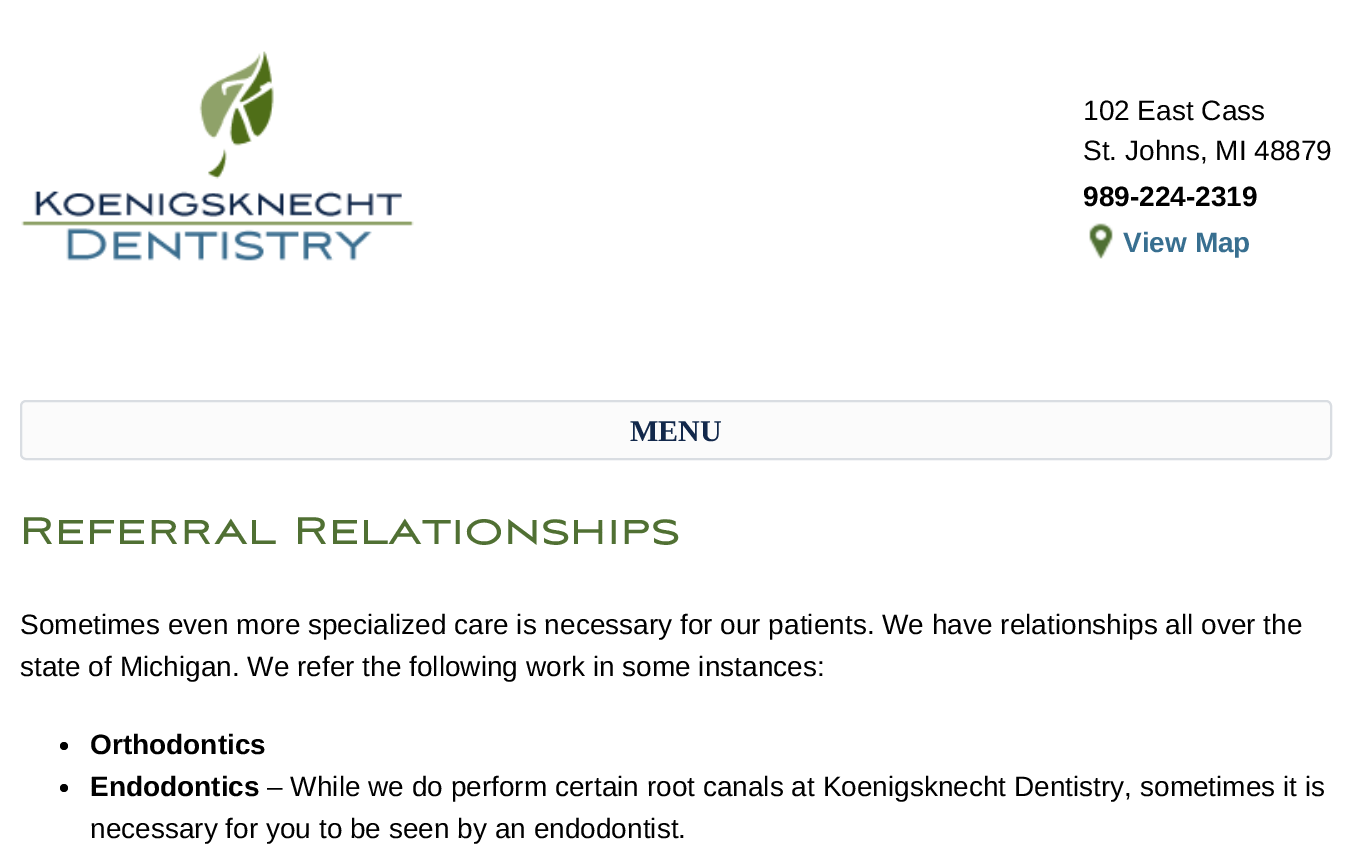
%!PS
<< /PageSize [1351 851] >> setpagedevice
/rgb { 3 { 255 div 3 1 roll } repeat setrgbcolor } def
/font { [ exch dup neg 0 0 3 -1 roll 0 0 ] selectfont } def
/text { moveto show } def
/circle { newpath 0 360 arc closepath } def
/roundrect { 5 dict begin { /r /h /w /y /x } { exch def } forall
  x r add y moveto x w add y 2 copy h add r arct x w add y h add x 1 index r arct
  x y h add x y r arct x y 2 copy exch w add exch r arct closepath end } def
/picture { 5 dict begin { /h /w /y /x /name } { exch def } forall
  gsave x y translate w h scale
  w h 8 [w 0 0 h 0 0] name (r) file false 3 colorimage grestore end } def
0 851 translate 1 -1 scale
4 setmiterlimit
255 255 255 rgb
0 0 1351 851 rectfill
(img_01.rgb) 21 51 393 210 picture
(img_02.rgb) 1089 223 24 36 picture
251 251 251 rgb
21 401 1310 58 5 roundrect gsave fill grestore
217 221 226 rgb
2 setlinewidth
stroke
0 0 0 rgb
64 746 4 circle fill
64 788 4 circle fill
/LiberationSans-Regular 28 font
(102 East Cass) 1083 120 text
(St. Johns, MI 48879) 1083 160 text
/LiberationSans-Bold 28 font
(989-224-2319) 1083 206 text
56 111 144 rgb
(View Map) 1123 252 text
/LiberationSerif-Bold 30 font
18 40 75 rgb
(MENU) 630 441 text
/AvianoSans-Regular 48 font
80 112 51 rgb
(Referral Relationships) 20 544 text
/LiberationSans-Regular 28 font
0 0 0 rgb
(Sometimes even more specialized care is necessary for our patients. We have relationships all over the) 20 634 text
(state of Michigan. We refer the following work in some instances:) 20 676 text
/LiberationSans-Bold 28 font
(Orthodontics) 90 754 text
(Endodontics) 90 796 text
/LiberationSans-Regular 28 font
(– While we do perform certain root canals at Koenigsknecht Dentistry, sometimes it is) 267 796 text
(necessary for you to be seen by an endodontist.) 90 838 text
showpage
